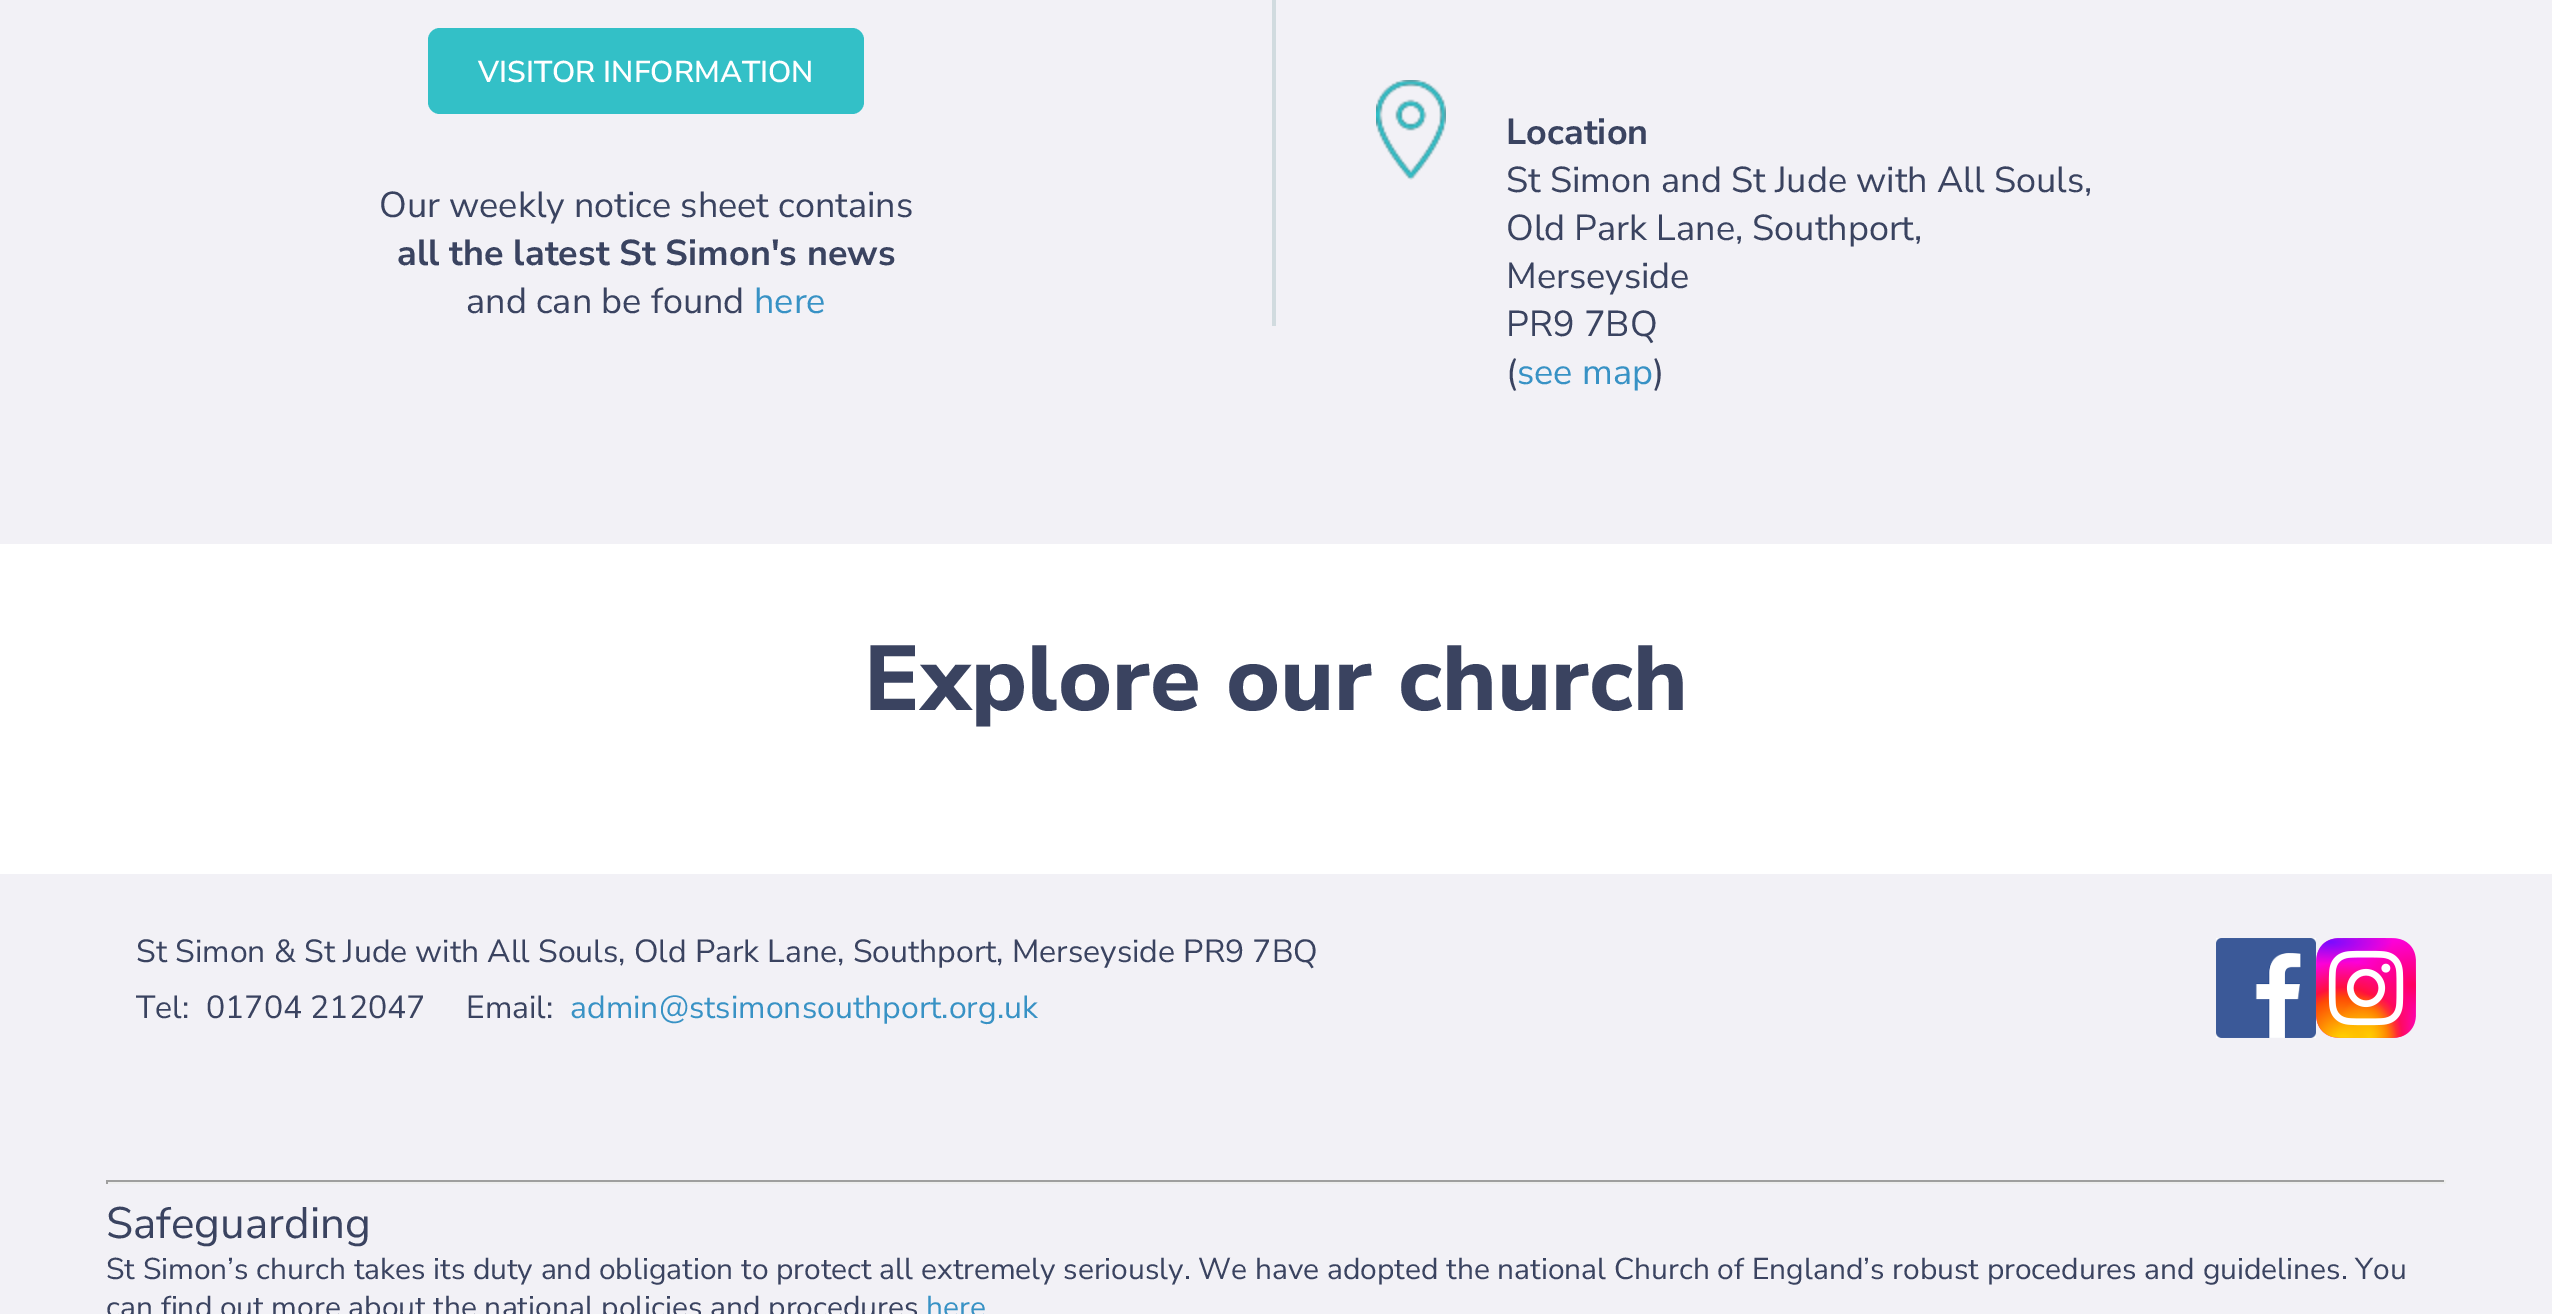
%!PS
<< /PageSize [2552 1314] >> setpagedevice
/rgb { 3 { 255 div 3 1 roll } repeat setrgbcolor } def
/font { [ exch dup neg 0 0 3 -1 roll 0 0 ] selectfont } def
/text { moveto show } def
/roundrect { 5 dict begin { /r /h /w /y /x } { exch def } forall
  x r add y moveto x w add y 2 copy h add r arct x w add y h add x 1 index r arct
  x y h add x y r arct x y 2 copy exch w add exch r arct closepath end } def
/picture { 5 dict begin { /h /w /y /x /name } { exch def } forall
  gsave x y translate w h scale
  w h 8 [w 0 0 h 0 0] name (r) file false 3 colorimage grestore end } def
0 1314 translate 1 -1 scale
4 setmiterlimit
255 255 255 rgb
0 0 2552 1314 rectfill
242 241 246 rgb
0 0 2552 544 rectfill
209 219 223 rgb
1272 0 4 326 rectfill
51 192 199 rgb
428 28 436 86 12 roundrect fill
(img_01.rgb) 1376 80 70 100 picture
242 241 246 rgb
0 874 2552 440 rectfill
(img_02.rgb) 2216 938 100 100 picture
(img_03.rgb) 2316 938 100 100 picture
159 159 159 rgb
106 1180 2340 2 rectfill
238 238 238 rgb
2444 1180 2 4 rectfill
106 1182 2340 2 rectfill
159 159 159 rgb
106 1180 2 4 rectfill
/NunitoSans-SemiBold 30 font
255 255 255 rgb
(VISITOR INFORMATION) 478 82 text
/NunitoSans-Regular 36 font
58 67 96 rgb
(Our weekly notice sheet contains) 379 217 text
/NunitoSans-Bold 36 font
(all the latest St Simon's news) 397 265 text
/NunitoSans-Regular 36 font
(and can be found) 466 313 text
56 146 197 rgb
(here) 754 313 text
/NunitoSans-Bold 36 font
58 67 96 rgb
(Location) 1506 144 text
/NunitoSans-Regular 36 font
(St Simon and St Jude with All Souls,) 1506 192 text
(Old Park Lane, Southport,) 1506 240 text
(Merseyside) 1506 288 text
(PR9 7BQ) 1506 336 text
(\() 1506 384 text
56 146 197 rgb
(see map) 1517 384 text
58 67 96 rgb
(\)) 1653 384 text
/NunitoSans-ExtraBold 92 font
(Explore our church) 864 710 text
/NunitoSans-Regular 32 font
(St Simon & St Jude with All Souls, Old Park Lane, Southport, Merseyside PR9 7BQ) 136 962 text
(Tel:) 136 1018 text
(01704 212047) 206 1018 text
(Email:) 466 1018 text
56 146 197 rgb
(admin@stsimonsouthport.org.uk) 570 1018 text
/NunitoSans-Regular 44 font
58 67 96 rgb
(Safeguarding) 106 1238 text
/NunitoSans-Regular 30 font
(St Simon’s church takes its duty and obligation to protect all extremely seriously. We have adopted the national Church of England’s robust procedures and guidelines. You) 106 1279 text
(can find out more about the national policies and procedures) 106 1317 text
56 146 197 rgb
(here) 926 1317 text
showpage
